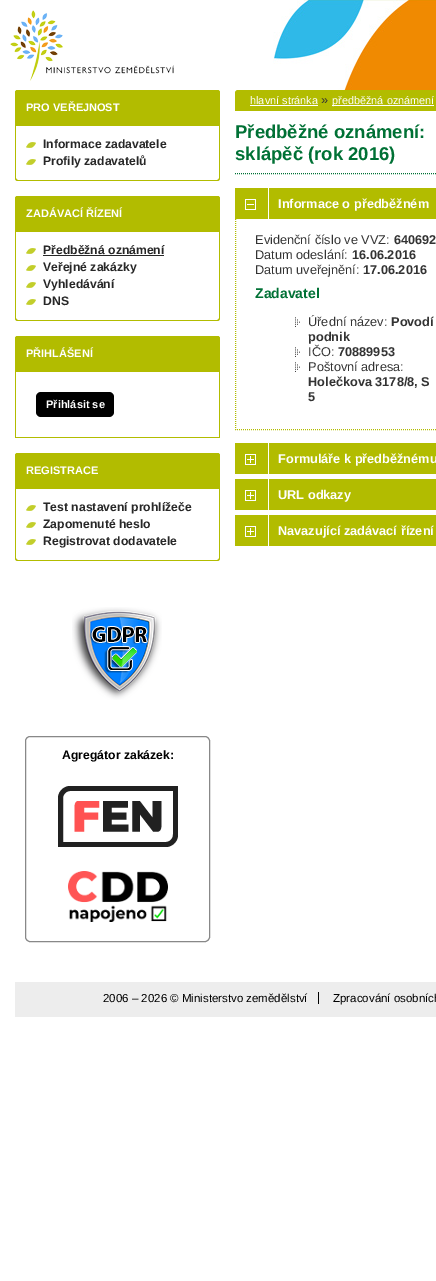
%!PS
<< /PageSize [436 1281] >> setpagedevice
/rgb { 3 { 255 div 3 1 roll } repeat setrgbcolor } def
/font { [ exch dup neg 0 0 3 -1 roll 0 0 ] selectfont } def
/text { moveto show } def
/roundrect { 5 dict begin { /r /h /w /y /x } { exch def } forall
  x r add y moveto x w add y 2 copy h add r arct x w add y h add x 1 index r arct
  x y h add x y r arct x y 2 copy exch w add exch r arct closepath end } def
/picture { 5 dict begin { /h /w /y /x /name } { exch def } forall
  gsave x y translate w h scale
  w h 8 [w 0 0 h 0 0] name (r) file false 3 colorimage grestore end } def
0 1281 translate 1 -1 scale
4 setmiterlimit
255 255 255 rgb
0 0 436 1281 rectfill
(img_01.rgb) 273 0 163 90 picture
(img_02.rgb) 10 10 164 71 picture
178 188 0 rgb
18 90 moveto 199 0 rlineto 1.5 0 3 1.5 3 3 rcurveto 0 33 rlineto -205 0 rlineto 0 -33 rlineto 0 -1.5 1.5 -3 3 -3 rcurveto closepath fill
18 90 moveto 199 0 rlineto 2 0 3 1 3 3 rcurveto 0 33 rlineto -205 0 rlineto 0 -33 rlineto 0 -2 1 -3 3 -3 rcurveto closepath 18 91 moveto 199 0 rlineto 1 0 2 1 2 2 rcurveto 0 33 rlineto -203 0 rlineto 0 -33 rlineto 0 -1 1 -2 2 -2 rcurveto closepath eofill
15 126 moveto 205 0 rlineto 0 52 rlineto 0 2 -1 3 -3 3 rcurveto -199 0 rlineto -2 0 -3 -1 -3 -3 rcurveto closepath 16 126 moveto 203 0 rlineto 0 52 rlineto 0 1 -1 2 -2 2 rcurveto -199 0 rlineto -1 0 -2 -1 -2 -2 rcurveto closepath eofill
(img_03.rgb) 26 142 10 6 picture
(img_03.rgb) 26 159 10 6 picture
18 196 moveto 199 0 rlineto 1.5 0 3 1.5 3 3 rcurveto 0 33 rlineto -205 0 rlineto 0 -33 rlineto 0 -1.5 1.5 -3 3 -3 rcurveto closepath fill
18 196 moveto 199 0 rlineto 2 0 3 1 3 3 rcurveto 0 33 rlineto -205 0 rlineto 0 -33 rlineto 0 -2 1 -3 3 -3 rcurveto closepath 18 197 moveto 199 0 rlineto 1 0 2 1 2 2 rcurveto 0 33 rlineto -203 0 rlineto 0 -33 rlineto 0 -1 1 -2 2 -2 rcurveto closepath eofill
15 232 moveto 205 0 rlineto 0 86 rlineto 0 2 -1 3 -3 3 rcurveto -199 0 rlineto -2 0 -3 -1 -3 -3 rcurveto closepath 16 232 moveto 203 0 rlineto 0 86 rlineto 0 1 -1 2 -2 2 rcurveto -199 0 rlineto -1 0 -2 -1 -2 -2 rcurveto closepath eofill
(img_03.rgb) 26 248 10 6 picture
39 39 39 rgb
43 255 121 1 rectfill
(img_03.rgb) 26 265 10 6 picture
(img_03.rgb) 26 282 10 6 picture
(img_03.rgb) 26 299 10 6 picture
178 188 0 rgb
18 336 moveto 199 0 rlineto 1.5 0 3 1.5 3 3 rcurveto 0 33 rlineto -205 0 rlineto 0 -33 rlineto 0 -1.5 1.5 -3 3 -3 rcurveto closepath fill
18 336 moveto 199 0 rlineto 2 0 3 1 3 3 rcurveto 0 33 rlineto -205 0 rlineto 0 -33 rlineto 0 -2 1 -3 3 -3 rcurveto closepath 18 337 moveto 199 0 rlineto 1 0 2 1 2 2 rcurveto 0 33 rlineto -203 0 rlineto 0 -33 rlineto 0 -1 1 -2 2 -2 rcurveto closepath eofill
219 372 1 66 rectfill
15 437 205 1 rectfill
15 372 1 66 rectfill
0 0 0 rgb
36 392 78 25 5 roundrect fill
178 188 0 rgb
18 453 moveto 199 0 rlineto 1.5 0 3 1.5 3 3 rcurveto 0 33 rlineto -205 0 rlineto 0 -33 rlineto 0 -1.5 1.5 -3 3 -3 rcurveto closepath fill
18 453 moveto 199 0 rlineto 2 0 3 1 3 3 rcurveto 0 33 rlineto -205 0 rlineto 0 -33 rlineto 0 -2 1 -3 3 -3 rcurveto closepath 18 454 moveto 199 0 rlineto 1 0 2 1 2 2 rcurveto 0 33 rlineto -203 0 rlineto 0 -33 rlineto 0 -1 1 -2 2 -2 rcurveto closepath eofill
15 489 moveto 205 0 rlineto 0 69 rlineto 0 2 -1 3 -3 3 rcurveto -199 0 rlineto -2 0 -3 -1 -3 -3 rcurveto closepath 16 489 moveto 203 0 rlineto 0 69 rlineto 0 1 -1 2 -2 2 rcurveto -199 0 rlineto -1 0 -2 -1 -2 -2 rcurveto closepath eofill
(img_03.rgb) 26 505 10 6 picture
(img_03.rgb) 26 522 10 6 picture
(img_03.rgb) 26 539 10 6 picture
(img_04.rgb) 72 607 90 93 picture
136 136 136 rgb
25.5 736.5 184 205 4.5 roundrect stroke
(img_05.rgb) 58 786 120 61 picture
(img_06.rgb) 68 871 100 51 picture
178 188 0 rgb
238 90 moveto 198 0 rlineto 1.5 0 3 1.5 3 3 rcurveto 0 18 rlineto -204 0 rlineto 0 -18 rlineto 0 -1.5 1.5 -3 3 -3 rcurveto closepath fill
255 255 255 rgb
250 105 68 1 rectfill
332 105 102 1 rectfill
0 113 53 rgb
[1 1] 0 setdash
235 173.5 moveto 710 0 rlineto stroke
(img_07.rgb) 235 188 201 31 picture
(img_08.rgb) 245 199 11 11 picture
178 188 0 rgb
235 429.5 moveto 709 0 rlineto stroke
235.5 219 moveto 0 211 rlineto stroke
(img_09.rgb) 295 317 5 10 picture
(img_09.rgb) 295 347 5 10 picture
(img_09.rgb) 295 362 5 10 picture
(img_07.rgb) 235 443 201 31 picture
(img_10.rgb) 245 454 11 11 picture
(img_07.rgb) 235 479 201 31 picture
(img_10.rgb) 245 490 11 11 picture
(img_07.rgb) 235 515 201 31 picture
(img_10.rgb) 245 526 11 11 picture
237 237 237 rgb
15 982 421 35 rectfill
0 0 0 rgb
318 992 1 12 rectfill
/LiberationSans-Bold 11 font
255 255 255 rgb
(PRO VEŘEJNOST) 26 111 text
/LiberationSans-Bold 12.2 font
39 39 39 rgb
(Informace zadavatele) 43 148 text
(Profily zadavatelů) 43 165 text
/LiberationSans-Bold 11 font
255 255 255 rgb
(ZADÁVACÍ ŘÍZENÍ) 26 217 text
/LiberationSans-Bold 12.2 font
39 39 39 rgb
(Předběžná oznámení) 43 254 text
(Veřejné zakázky) 43 271 text
(Vyhledávání) 43 288 text
(DNS) 43 305 text
/LiberationSans-Bold 11 font
255 255 255 rgb
(PŘIHLÁŠENÍ) 26 357 text
(Přihlásit se) 46 408 text
(REGISTRACE) 26 474 text
/LiberationSans-Bold 12.2 font
39 39 39 rgb
(Test nastavení prohlížeče) 43 511 text
(Zapomenuté heslo) 43 528 text
(Registrovat dodavatele) 43 545 text
0 0 0 rgb
(Agregátor zakázek:) 62 759 text
/LiberationSans-Regular 10.9 font
255 255 255 rgb
(hlavní stránka) 250 104 text
/LiberationSans-Regular 12.75 font
51 51 51 rgb
(») 321 104 text
/LiberationSans-Regular 10.9 font
255 255 255 rgb
(předběžná oznámení) 332 104 text
/LiberationSans-Bold 18.5 font
0 113 53 rgb
(Předběžné oznámení:) 235 138 text
(sklápěč \(rok 2016\)) 235 160 text
/LiberationSans-Bold 12.75 font
255 255 255 rgb
(Informace o předběžném) 278 208 text
/LiberationSans-Regular 12.75 font
51 51 51 rgb
(Evidenční číslo ve VVZ:) 255 244 text
/LiberationSans-Bold 12.75 font
(640692) 394 244 text
/LiberationSans-Regular 12.75 font
(Datum odeslání:) 255 259 text
/LiberationSans-Bold 12.75 font
(16.06.2016) 352 259 text
/LiberationSans-Regular 12.75 font
(Datum uveřejnění:) 255 274 text
/LiberationSans-Bold 12.75 font
(17.06.2016) 363 274 text
/LiberationSans-Bold 14 font
0 113 53 rgb
(Zadavatel) 255 298 text
/LiberationSans-Regular 12.75 font
51 51 51 rgb
(Úřední název:) 308 326 text
/LiberationSans-Bold 12.75 font
(Povodí) 391 326 text
(podnik) 308 341 text
/LiberationSans-Regular 12.75 font
(IČO:) 308 356 text
/LiberationSans-Bold 12.75 font
(70889953) 338 356 text
/LiberationSans-Regular 12.75 font
(Poštovní adresa:) 308 371 text
/LiberationSans-Bold 12.75 font
(Holečkova 3178/8, S) 308 386 text
(5) 308 401 text
255 255 255 rgb
(Formuláře k předběžnému) 278 463 text
(URL odkazy) 278 499 text
(Navazující zadávací řízení) 278 535 text
/LiberationSans-Regular 11.5 font
0 0 0 rgb
(2006 – 2026 © Ministerstvo zemědělství) 103 1002 text
(Zpracování osobních) 333 1002 text
showpage
